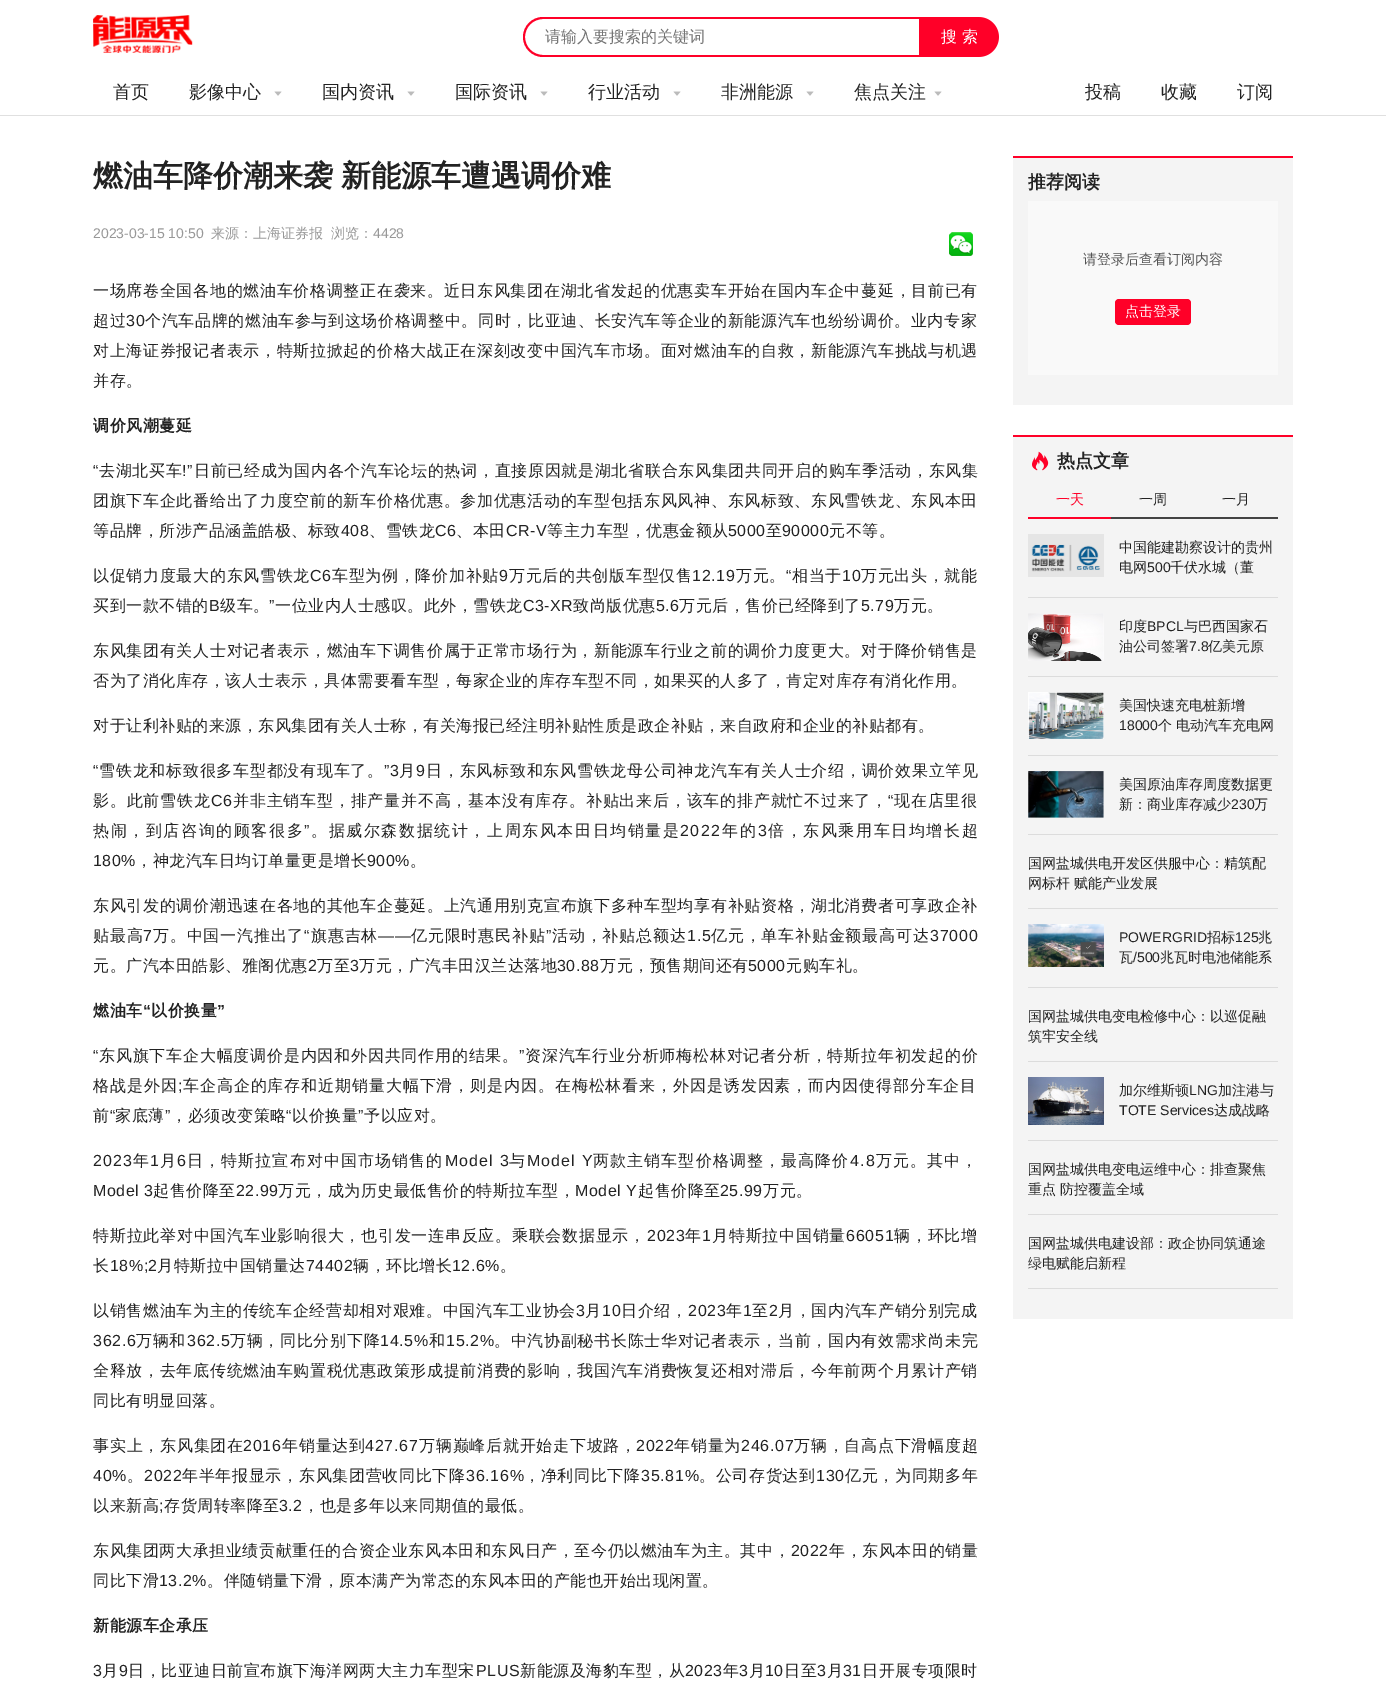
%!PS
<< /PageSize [1386 1695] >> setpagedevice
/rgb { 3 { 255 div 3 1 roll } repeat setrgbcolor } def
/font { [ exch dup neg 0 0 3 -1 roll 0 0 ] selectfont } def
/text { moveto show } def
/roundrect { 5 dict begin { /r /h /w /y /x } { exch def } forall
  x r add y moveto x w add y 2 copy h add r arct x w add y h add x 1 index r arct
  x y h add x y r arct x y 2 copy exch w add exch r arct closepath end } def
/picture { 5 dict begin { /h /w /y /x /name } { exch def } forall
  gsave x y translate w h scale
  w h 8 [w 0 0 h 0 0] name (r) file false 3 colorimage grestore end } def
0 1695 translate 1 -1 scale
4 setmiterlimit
255 255 255 rgb
0 0 1386 1695 rectfill
(img_01.rgb) 93 15 100 38 picture
255 0 40 rgb
543 17 moveto 376 0 rlineto 0 40 rlineto -376 0 rlineto -11 0 -20 -9 -20 -20 rcurveto 0 -11 9 -20 20 -20 rcurveto closepath 543 19 moveto 376 0 rlineto 0 36 rlineto -376 0 rlineto -10 0 -18 -8 -18 -18 rcurveto 0 -10 8 -18 18 -18 rcurveto closepath eofill
(img_02.rgb) 919 17 80 40 picture
224 224 224 rgb
0 115 1386 1 rectfill
(img_03.rgb) 274 91 8 5 picture
(img_03.rgb) 407 91 8 5 picture
(img_03.rgb) 540 91 8 5 picture
(img_03.rgb) 673 91 8 5 picture
(img_03.rgb) 806 91 8 5 picture
(img_03.rgb) 934 91 8 5 picture
(img_04.rgb) 949 232 24 24 picture
244 244 244 rgb
1013 158 280 247 rectfill
255 0 40 rgb
1013 156 280 2 rectfill
249 249 249 rgb
1028 201 250 174 rectfill
255 0 40 rgb
1115 299 76 26 4 roundrect fill
244 244 244 rgb
1013 437 280 882 rectfill
255 0 40 rgb
1013 435 280 2 rectfill
(img_05.rgb) 1032 451 17 20 picture
1028 517 83 2 rectfill
68 68 68 rgb
1111 517 167 2 rectfill
220 220 220 rgb
1028 597 250 1 rectfill
(img_06.rgb) 1028 534 76 43 picture
1028 676 250 1 rectfill
(img_07.rgb) 1028 613 76 48 picture
1028 755 250 1 rectfill
(img_08.rgb) 1028 692 76 47 picture
1028 834 250 1 rectfill
(img_09.rgb) 1028 771 76 47 picture
1028 908 250 1 rectfill
1028 987 250 1 rectfill
(img_10.rgb) 1028 924 76 43 picture
1028 1061 250 1 rectfill
1028 1140 250 1 rectfill
(img_11.rgb) 1028 1077 76 48 picture
1028 1214 250 1 rectfill
1028 1288 250 1 rectfill
/WenQuanYiZenHei-Medium 16 font
117 117 117 rgb
(请输入要搜索的关键词) 545 42 text
255 255 255 rgb
(搜 索) 941 42 text
/WenQuanYiZenHei-Medium 18 font
34 34 34 rgb
(首页) 113 98 text
(影像中心) 189 98 text
(国内资讯) 322 98 text
(国际资讯) 455 98 text
(行业活动) 588 98 text
(非洲能源) 721 98 text
(焦点关注) 854 98 text
(投稿) 1085 98 text
(收藏) 1161 98 text
(订阅) 1237 98 text
/WenQuanYiZenHei-Bold 30 font
93 186 moveto -1 0 32 (燃油车降价潮来袭 新能源车遭遇调价难) widthshow
/LiberationSans-Regular 14 font
152 152 152 rgb
(2023-03-15 10:50) 93 238 text
/WenQuanYiZenHei-Medium 14 font
(来源：上海证券报) 211 238 text
(浏览：) 331 238 text
/LiberationSans-Regular 14 font
(4428) 373 238 text
/WenQuanYiZenHei-Medium 16 font
34 34 34 rgb
93 296 moveto 0.7 0 (一场席卷全国各地的燃油车价格调整正在袭来。近日东风集团在湖北省发起的优惠卖车开始在国内车企中蔓延，目前已有) ashow
93 326 moveto 0.65 0 (超过) ashow
/LiberationSans-Regular 16 font
126 326 moveto 0.65 0 (30) ashow
/WenQuanYiZenHei-Medium 16 font
145 326 moveto 0.65 0 (个汽车品牌的燃油车参与到这场价格调整中。同时，比亚迪、长安汽车等企业的新能源汽车也纷纷调价。业内专家) ashow
93 356 moveto 0.7 0 (对上海证券报记者表示，特斯拉掀起的价格大战正在深刻改变中国汽车市场。面对燃油车的自救，新能源汽车挑战与机遇) ashow
93 386 moveto 0.5 0 (并存。) ashow
/WenQuanYiZenHei-Bold 16 font
93 431 moveto 0.5 0 (调价风潮蔓延) ashow
/LiberationSans-Regular 16 font
93 476 moveto 0.7 0 (“) ashow
/WenQuanYiZenHei-Medium 16 font
99 476 moveto 0.7 0 (去湖北买车) ashow
/LiberationSans-Regular 16 font
182 476 moveto 0.7 0 (!”) ashow
/WenQuanYiZenHei-Medium 16 font
194 476 moveto 0.7 0 (日前已经成为国内各个汽车论坛的热词，直接原因就是湖北省联合东风集团共同开启的购车季活动，东风集) ashow
93 506 moveto 0.7 0 (团旗下车企此番给出了力度空前的新车价格优惠。参加优惠活动的车型包括东风风神、东风标致、东风雪铁龙、东风本田) ashow
93 536 moveto 0.5 0 (等品牌，所涉产品涵盖皓极、标致) ashow
/LiberationSans-Regular 16 font
341 536 moveto 0.5 0 (408) ashow
/WenQuanYiZenHei-Medium 16 font
369 536 moveto 0.5 0 (、雪铁龙) ashow
/LiberationSans-Regular 16 font
435 536 moveto 0.5 0 (C6) ashow
/WenQuanYiZenHei-Medium 16 font
456 536 moveto 0.5 0 (、本田) ashow
/LiberationSans-Regular 16 font
506 536 moveto 0.5 0 (CR-V) ashow
/WenQuanYiZenHei-Medium 16 font
547 536 moveto 0.5 0 (等主力车型，优惠金额从) ashow
/LiberationSans-Regular 16 font
728 536 moveto 0.5 0 (5000) ashow
/WenQuanYiZenHei-Medium 16 font
766 536 moveto 0.5 0 (至) ashow
/LiberationSans-Regular 16 font
782 536 moveto 0.5 0 (90000) ashow
/WenQuanYiZenHei-Medium 16 font
829 536 moveto 0.5 0 (元不等。) ashow
93 581 moveto 0.7 0 (以促销力度最大的东风雪铁龙) ashow
/LiberationSans-Regular 16 font
310 581 moveto 0.7 0 (C6) ashow
/WenQuanYiZenHei-Medium 16 font
332 581 moveto 0.7 0 (车型为例，降价加补贴) ashow
/LiberationSans-Regular 16 font
499 581 moveto 0.7 0 (9) ashow
/WenQuanYiZenHei-Medium 16 font
509 581 moveto 0.7 0 (万元后的共创版车型仅售) ashow
/LiberationSans-Regular 16 font
692 581 moveto 0.7 0 (12.19) ashow
/WenQuanYiZenHei-Medium 16 font
736 581 moveto 0.7 0 (万元。) ashow
/LiberationSans-Regular 16 font
786 581 moveto 0.7 0 (“) ashow
/WenQuanYiZenHei-Medium 16 font
792 581 moveto 0.7 0 (相当于) ashow
/LiberationSans-Regular 16 font
842 581 moveto 0.7 0 (10) ashow
/WenQuanYiZenHei-Medium 16 font
861 581 moveto 0.7 0 (万元出头，就能) ashow
93 611 moveto 0.5 0 (买到一款不错的) ashow
/LiberationSans-Regular 16 font
209 611 moveto 0.5 0 (B) ashow
/WenQuanYiZenHei-Medium 16 font
220 611 moveto 0.5 0 (级车。) ashow
/LiberationSans-Regular 16 font
269 611 moveto 0.5 0 (”) ashow
/WenQuanYiZenHei-Medium 16 font
275 611 moveto 0.5 0 (一位业内人士感叹。此外，雪铁龙) ashow
/LiberationSans-Regular 16 font
523 611 moveto 0.5 0 (C3-XR) ashow
/WenQuanYiZenHei-Medium 16 font
573 611 moveto 0.5 0 (致尚版优惠) ashow
/LiberationSans-Regular 16 font
656 611 moveto 0.5 0 (5.6) ashow
/WenQuanYiZenHei-Medium 16 font
679 611 moveto 0.5 0 (万元后，售价已经降到了) ashow
/LiberationSans-Regular 16 font
861 611 moveto 0.5 0 (5.79) ashow
/WenQuanYiZenHei-Medium 16 font
894 611 moveto 0.5 0 (万元。) ashow
93 656 moveto 0.7 0 (东风集团有关人士对记者表示，燃油车下调售价属于正常市场行为，新能源车行业之前的调价力度更大。对于降价销售是) ashow
93 686 moveto 0.5 0 (否为了消化库存，该人士表示，具体需要看车型，每家企业的库存车型不同，如果买的人多了，肯定对库存有消化作用。) ashow
93 731 moveto 0.5 0 (对于让利补贴的来源，东风集团有关人士称，有关海报已经注明补贴性质是政企补贴，来自政府和企业的补贴都有。) ashow
/LiberationSans-Regular 16 font
93 776 moveto 0.75 0 (“) ashow
/WenQuanYiZenHei-Medium 16 font
99 776 moveto 0.75 0 (雪铁龙和标致很多车型都没有现车了。) ashow
/LiberationSans-Regular 16 font
384 776 moveto 0.75 0 (”3) ashow
/WenQuanYiZenHei-Medium 16 font
399 776 moveto 0.75 0 (月) ashow
/LiberationSans-Regular 16 font
416 776 moveto 0.75 0 (9) ashow
/WenQuanYiZenHei-Medium 16 font
426 776 moveto 0.75 0 (日，东风标致和东风雪铁龙母公司神龙汽车有关人士介绍，调价效果立竿见) ashow
93 806 moveto 0.8 0 (影。此前雪铁龙) ashow
/LiberationSans-Regular 16 font
211 806 moveto 0.8 0 (C6) ashow
/WenQuanYiZenHei-Medium 16 font
233 806 moveto 0.8 0 (并非主销车型，排产量并不高，基本没有库存。补贴出来后，该车的排产就忙不过来了，) ashow
/LiberationSans-Regular 16 font
888 806 moveto 0.8 0 (“) ashow
/WenQuanYiZenHei-Medium 16 font
894 806 moveto 0.8 0 (现在店里很) ashow
93 836 moveto 1.6 0 (热闹，到店咨询的顾客很多) ashow
/LiberationSans-Regular 16 font
304 836 moveto 1.6 0 (”) ashow
/WenQuanYiZenHei-Medium 16 font
311 836 moveto 1.6 0 (。据威尔森数据统计，上周东风本田日均销量是) ashow
/LiberationSans-Regular 16 font
680 836 moveto 1.6 0 (2022) ashow
/WenQuanYiZenHei-Medium 16 font
722 836 moveto 1.6 0 (年的) ashow
/LiberationSans-Regular 16 font
758 836 moveto 1.6 0 (3) ashow
/WenQuanYiZenHei-Medium 16 font
768 836 moveto 1.6 0 (倍，东风乘用车日均增长超) ashow
/LiberationSans-Regular 16 font
93 866 moveto 0.5 0 (180%) ashow
/WenQuanYiZenHei-Medium 16 font
136 866 moveto 0.5 0 (，神龙汽车日均订单量更是增长) ashow
/LiberationSans-Regular 16 font
367 866 moveto 0.5 0 (900%) ashow
/WenQuanYiZenHei-Medium 16 font
410 866 moveto 0.5 0 (。) ashow
93 911 moveto 0.7 0 (东风引发的调价潮迅速在各地的其他车企蔓延。上汽通用别克宣布旗下多种车型均享有补贴资格，湖北消费者可享政企补) ashow
93 941 moveto 0.8 0 (贴最高) ashow
/LiberationSans-Regular 16 font
143 941 moveto 0.8 0 (7) ashow
/WenQuanYiZenHei-Medium 16 font
153 941 moveto 0.8 0 (万。中国一汽推出了) ashow
/LiberationSans-Regular 16 font
304 941 moveto 0.8 0 (“) ashow
/WenQuanYiZenHei-Medium 16 font
311 941 moveto 0.8 0 (旗惠吉林) ashow
/LiberationSans-Regular 16 font
378 941 moveto 0.8 0 (——) ashow
/WenQuanYiZenHei-Medium 16 font
411 941 moveto 0.8 0 (亿元限时惠民补贴) ashow
/LiberationSans-Regular 16 font
546 941 moveto 0.8 0 (”) ashow
/WenQuanYiZenHei-Medium 16 font
552 941 moveto 0.8 0 (活动，补贴总额达) ashow
/LiberationSans-Regular 16 font
687 941 moveto 0.8 0 (1.5) ashow
/WenQuanYiZenHei-Medium 16 font
711 941 moveto 0.8 0 (亿元，单车补贴金额最高可达) ashow
/LiberationSans-Regular 16 font
930 941 moveto 0.8 0 (37000) ashow
/WenQuanYiZenHei-Medium 16 font
93 971 moveto 0.5 0 (元。广汽本田皓影、雅阁优惠) ashow
/LiberationSans-Regular 16 font
308 971 moveto 0.5 0 (2) ashow
/WenQuanYiZenHei-Medium 16 font
317 971 moveto 0.5 0 (万至) ashow
/LiberationSans-Regular 16 font
350 971 moveto 0.5 0 (3) ashow
/WenQuanYiZenHei-Medium 16 font
359 971 moveto 0.5 0 (万元，广汽丰田汉兰达落地) ashow
/LiberationSans-Regular 16 font
557 971 moveto 0.5 0 (30.88) ashow
/WenQuanYiZenHei-Medium 16 font
600 971 moveto 0.5 0 (万元，预售期间还有) ashow
/LiberationSans-Regular 16 font
748 971 moveto 0.5 0 (5000) ashow
/WenQuanYiZenHei-Medium 16 font
786 971 moveto 0.5 0 (元购车礼。) ashow
/WenQuanYiZenHei-Bold 16 font
93 1016 moveto 0.5 0 (燃油车) ashow
/LiberationSans-Bold 16 font
143 1016 moveto 0.5 0 (“) ashow
/WenQuanYiZenHei-Bold 16 font
151 1016 moveto 0.5 0 (以价换量) ashow
/LiberationSans-Bold 16 font
217 1016 moveto 0.5 0 (”) ashow
/LiberationSans-Regular 16 font
93 1061 moveto 0.8 0 (“) ashow
/WenQuanYiZenHei-Medium 16 font
99 1061 moveto 0.8 0 (东风旗下车企大幅度调价是内因和外因共同作用的结果。) ashow
/LiberationSans-Regular 16 font
519 1061 moveto 0.8 0 (”) ashow
/WenQuanYiZenHei-Medium 16 font
525 1061 moveto 0.8 0 (资深汽车行业分析师梅松林对记者分析，特斯拉年初发起的价) ashow
93 1091 moveto 0.9 0 (格战是外因) ashow
/LiberationSans-Regular 16 font
178 1091 moveto 0.9 0 (;) ashow
/WenQuanYiZenHei-Medium 16 font
183 1091 moveto 0.9 0 (车企高企的库存和近期销量大幅下滑，则是内因。在梅松林看来，外因是诱发因素，而内因使得部分车企目) ashow
93 1121 moveto 0.5 0 (前) ashow
/LiberationSans-Regular 16 font
110 1121 moveto 0.5 0 (“) ashow
/WenQuanYiZenHei-Medium 16 font
115 1121 moveto 0.5 0 (家底薄) ashow
/LiberationSans-Regular 16 font
165 1121 moveto 0.5 0 (”) ashow
/WenQuanYiZenHei-Medium 16 font
171 1121 moveto 0.5 0 (，必须改变策略) ashow
/LiberationSans-Regular 16 font
286 1121 moveto 0.5 0 (“) ashow
/WenQuanYiZenHei-Medium 16 font
292 1121 moveto 0.5 0 (以价换量) ashow
/LiberationSans-Regular 16 font
358 1121 moveto 0.5 0 (”) ashow
/WenQuanYiZenHei-Medium 16 font
364 1121 moveto 0.5 0 (予以应对。) ashow
/LiberationSans-Regular 16 font
93 1166 moveto 1.1 0 (2023) ashow
/WenQuanYiZenHei-Medium 16 font
133 1166 moveto 1.1 0 (年) ashow
/LiberationSans-Regular 16 font
150 1166 moveto 1.1 0 (1) ashow
/WenQuanYiZenHei-Medium 16 font
160 1166 moveto 1.1 0 (月) ashow
/LiberationSans-Regular 16 font
177 1166 moveto 1.1 0 (6) ashow
/WenQuanYiZenHei-Medium 16 font
187 1166 moveto 1.1 0 (日，特斯拉宣布对中国市场销售的) ashow
/LiberationSans-Regular 16 font
445 1166 moveto 1.1 0 (Model 3) ashow
/WenQuanYiZenHei-Medium 16 font
509 1166 moveto 1.1 0 (与) ashow
/LiberationSans-Regular 16 font
527 1166 moveto 1.1 0 (Model Y) ashow
/WenQuanYiZenHei-Medium 16 font
593 1166 moveto 1.1 0 (两款主销车型价格调整，最高降价) ashow
/LiberationSans-Regular 16 font
850 1166 moveto 1.1 0 (4.8) ashow
/WenQuanYiZenHei-Medium 16 font
876 1166 moveto 1.1 0 (万元。其中，) ashow
/LiberationSans-Regular 16 font
93 1196 moveto 0.5 0 (Model 3) ashow
/WenQuanYiZenHei-Medium 16 font
153 1196 moveto 0.5 0 (起售价降至) ashow
/LiberationSans-Regular 16 font
236 1196 moveto 0.5 0 (22.99) ashow
/WenQuanYiZenHei-Medium 16 font
278 1196 moveto 0.5 0 (万元，成为历史最低售价的特斯拉车型，) ashow
/LiberationSans-Regular 16 font
575 1196 moveto 0.5 0 (Model Y) ashow
/WenQuanYiZenHei-Medium 16 font
638 1196 moveto 0.5 0 (起售价降至) ashow
/LiberationSans-Regular 16 font
720 1196 moveto 0.5 0 (25.99) ashow
/WenQuanYiZenHei-Medium 16 font
763 1196 moveto 0.5 0 (万元。) ashow
93 1241 moveto 0.75 0 (特斯拉此举对中国汽车业影响很大，也引发一连串反应。乘联会数据显示，) ashow
/LiberationSans-Regular 16 font
647 1241 moveto 0.75 0 (2023) ashow
/WenQuanYiZenHei-Medium 16 font
685 1241 moveto 0.75 0 (年) ashow
/LiberationSans-Regular 16 font
702 1241 moveto 0.75 0 (1) ashow
/WenQuanYiZenHei-Medium 16 font
712 1241 moveto 0.75 0 (月特斯拉中国销量) ashow
/LiberationSans-Regular 16 font
846 1241 moveto 0.75 0 (66051) ashow
/WenQuanYiZenHei-Medium 16 font
894 1241 moveto 0.75 0 (辆，环比增) ashow
93 1271 moveto 0.5 0 (长) ashow
/LiberationSans-Regular 16 font
110 1271 moveto 0.5 0 (18%;2) ashow
/WenQuanYiZenHei-Medium 16 font
157 1271 moveto 0.5 0 (月特斯拉中国销量达) ashow
/LiberationSans-Regular 16 font
306 1271 moveto 0.5 0 (74402) ashow
/WenQuanYiZenHei-Medium 16 font
353 1271 moveto 0.5 0 (辆，环比增长) ashow
/LiberationSans-Regular 16 font
452 1271 moveto 0.5 0 (12.6%) ashow
/WenQuanYiZenHei-Medium 16 font
500 1271 moveto 0.5 0 (。) ashow
93 1316 moveto 0.65 0 (以销售燃油车为主的传统车企经营却相对艰难。中国汽车工业协会) ashow
/LiberationSans-Regular 16 font
576 1316 moveto 0.65 0 (3) ashow
/WenQuanYiZenHei-Medium 16 font
585 1316 moveto 0.65 0 (月) ashow
/LiberationSans-Regular 16 font
602 1316 moveto 0.65 0 (10) ashow
/WenQuanYiZenHei-Medium 16 font
621 1316 moveto 0.65 0 (日介绍，) ashow
/LiberationSans-Regular 16 font
688 1316 moveto 0.65 0 (2023) ashow
/WenQuanYiZenHei-Medium 16 font
726 1316 moveto 0.65 0 (年) ashow
/LiberationSans-Regular 16 font
743 1316 moveto 0.65 0 (1) ashow
/WenQuanYiZenHei-Medium 16 font
752 1316 moveto 0.65 0 (至) ashow
/LiberationSans-Regular 16 font
769 1316 moveto 0.65 0 (2) ashow
/WenQuanYiZenHei-Medium 16 font
778 1316 moveto 0.65 0 (月，国内汽车产销分别完成) ashow
/LiberationSans-Regular 16 font
93 1346 moveto 0.7 0 (362.6) ashow
/WenQuanYiZenHei-Medium 16 font
136 1346 moveto 0.7 0 (万辆和) ashow
/LiberationSans-Regular 16 font
187 1346 moveto 0.7 0 (362.5) ashow
/WenQuanYiZenHei-Medium 16 font
230 1346 moveto 0.7 0 (万辆，同比分别下降) ashow
/LiberationSans-Regular 16 font
380 1346 moveto 0.7 0 (14.5%) ashow
/WenQuanYiZenHei-Medium 16 font
429 1346 moveto 0.7 0 (和) ashow
/LiberationSans-Regular 16 font
446 1346 moveto 0.7 0 (15.2%) ashow
/WenQuanYiZenHei-Medium 16 font
494 1346 moveto 0.7 0 (。中汽协副秘书长陈士华对记者表示，当前，国内有效需求尚未完) ashow
93 1376 moveto 0.7 0 (全释放，去年底传统燃油车购置税优惠政策形成提前消费的影响，我国汽车消费恢复还相对滞后，今年前两个月累计产销) ashow
93 1406 moveto 0.5 0 (同比有明显回落。) ashow
93 1451 moveto 0.75 0 (事实上，东风集团在) ashow
/LiberationSans-Regular 16 font
243 1451 moveto 0.75 0 (2016) ashow
/WenQuanYiZenHei-Medium 16 font
282 1451 moveto 0.75 0 (年销量达到) ashow
/LiberationSans-Regular 16 font
365 1451 moveto 0.75 0 (427.67) ashow
/WenQuanYiZenHei-Medium 16 font
419 1451 moveto 0.75 0 (万辆巅峰后就开始走下坡路，) ashow
/LiberationSans-Regular 16 font
636 1451 moveto 0.75 0 (2022) ashow
/WenQuanYiZenHei-Medium 16 font
674 1451 moveto 0.75 0 (年销量为) ashow
/LiberationSans-Regular 16 font
741 1451 moveto 0.75 0 (246.07) ashow
/WenQuanYiZenHei-Medium 16 font
794 1451 moveto 0.75 0 (万辆，自高点下滑幅度超) ashow
/LiberationSans-Regular 16 font
93 1481 moveto 0.7 0 (40%) ashow
/WenQuanYiZenHei-Medium 16 font
127 1481 moveto 0.7 0 (。) ashow
/LiberationSans-Regular 16 font
144 1481 moveto 0.7 0 (2022) ashow
/WenQuanYiZenHei-Medium 16 font
182 1481 moveto 0.7 0 (年半年报显示，东风集团营收同比下降) ashow
/LiberationSans-Regular 16 font
466 1481 moveto 0.7 0 (36.16%) ashow
/WenQuanYiZenHei-Medium 16 font
524 1481 moveto 0.7 0 (，净利同比下降) ashow
/LiberationSans-Regular 16 font
641 1481 moveto 0.7 0 (35.81%) ashow
/WenQuanYiZenHei-Medium 16 font
699 1481 moveto 0.7 0 (。公司存货达到) ashow
/LiberationSans-Regular 16 font
816 1481 moveto 0.7 0 (130) ashow
/WenQuanYiZenHei-Medium 16 font
845 1481 moveto 0.7 0 (亿元，为同期多年) ashow
93 1511 moveto 0.5 0 (以来新高) ashow
/LiberationSans-Regular 16 font
159 1511 moveto 0.5 0 (;) ashow
/WenQuanYiZenHei-Medium 16 font
164 1511 moveto 0.5 0 (存货周转率降至) ashow
/LiberationSans-Regular 16 font
279 1511 moveto 0.5 0 (3.2) ashow
/WenQuanYiZenHei-Medium 16 font
303 1511 moveto 0.5 0 (，也是多年以来同期值的最低。) ashow
93 1556 moveto 0.6 0 (东风集团两大承担业绩贡献重任的合资企业东风本田和东风日产，至今仍以燃油车为主。其中，) ashow
/LiberationSans-Regular 16 font
791 1556 moveto 0.6 0 (2022) ashow
/WenQuanYiZenHei-Medium 16 font
829 1556 moveto 0.6 0 (年，东风本田的销量) ashow
93 1586 moveto 0.5 0 (同比下滑) ashow
/LiberationSans-Regular 16 font
159 1586 moveto 0.5 0 (13.2%) ashow
/WenQuanYiZenHei-Medium 16 font
207 1586 moveto 0.5 0 (。伴随销量下滑，原本满产为常态的东风本田的产能也开始出现闲置。) ashow
/WenQuanYiZenHei-Bold 16 font
93 1631 moveto 0.5 0 (新能源车企承压) ashow
/LiberationSans-Regular 16 font
93 1676 moveto 0.5 0 (3) ashow
/WenQuanYiZenHei-Medium 16 font
102 1676 moveto 0.5 0 (月) ashow
/LiberationSans-Regular 16 font
119 1676 moveto 0.5 0 (9) ashow
/WenQuanYiZenHei-Medium 16 font
128 1676 moveto 0.5 0 (日，比亚迪日前宣布旗下海洋网两大主力车型宋) ashow
/LiberationSans-Regular 16 font
476 1676 moveto 0.5 0 (PLUS) ashow
/WenQuanYiZenHei-Medium 16 font
520 1676 moveto 0.5 0 (新能源及海豹车型，从) ashow
/LiberationSans-Regular 16 font
685 1676 moveto 0.5 0 (2023) ashow
/WenQuanYiZenHei-Medium 16 font
723 1676 moveto 0.5 0 (年) ashow
/LiberationSans-Regular 16 font
739 1676 moveto 0.5 0 (3) ashow
/WenQuanYiZenHei-Medium 16 font
749 1676 moveto 0.5 0 (月) ashow
/LiberationSans-Regular 16 font
765 1676 moveto 0.5 0 (10) ashow
/WenQuanYiZenHei-Medium 16 font
784 1676 moveto 0.5 0 (日至) ashow
/LiberationSans-Regular 16 font
817 1676 moveto 0.5 0 (3) ashow
/WenQuanYiZenHei-Medium 16 font
827 1676 moveto 0.5 0 (月) ashow
/LiberationSans-Regular 16 font
843 1676 moveto 0.5 0 (31) ashow
/WenQuanYiZenHei-Medium 16 font
862 1676 moveto 0.5 0 (日开展专项限时) ashow
/WenQuanYiZenHei-Bold 18 font
(推荐阅读) 1028 188 text
/WenQuanYiZenHei-Medium 14 font
85 85 85 rgb
(请登录后查看订阅内容) 1083 264 text
255 255 255 rgb
(点击登录) 1125 316 text
/WenQuanYiZenHei-Bold 18 font
34 34 34 rgb
(热点文章) 1057 467 text
/WenQuanYiZenHei-Medium 14 font
255 0 40 rgb
(一天) 1056 504 text
34 34 34 rgb
(一周) 1139 504 text
(一月) 1222 504 text
(中国能建勘察设计的贵州) 1119 552 text
(电网) 1119 572 text
/LiberationSans-Regular 14 font
(500) 1147 572 text
/WenQuanYiZenHei-Medium 14 font
(千伏水城（董) 1170 572 text
(印度) 1119 631 text
/LiberationSans-Regular 14 font
(BPCL) 1147 631 text
/WenQuanYiZenHei-Medium 14 font
(与巴西国家石) 1184 631 text
(油公司签署) 1119 651 text
/LiberationSans-Regular 14 font
(7.8) 1189 651 text
/WenQuanYiZenHei-Medium 14 font
(亿美元原) 1208 651 text
(美国快速充电桩新增) 1119 710 text
/LiberationSans-Regular 14 font
(18000) 1119 730 text
/WenQuanYiZenHei-Medium 14 font
(个 电动汽车充电网) 1158 730 text
(美国原油库存周度数据更) 1119 789 text
(新：商业库存减少) 1119 809 text
/LiberationSans-Regular 14 font
(230) 1231 809 text
/WenQuanYiZenHei-Medium 14 font
(万) 1254 809 text
(国网盐城供电开发区供服中心：精筑配) 1028 868 text
(网标杆) 1028 888 text
(赋能产业发展) 1074 888 text
/LiberationSans-Regular 14 font
(POWERGRID) 1119 942 text
/WenQuanYiZenHei-Medium 14 font
(招标) 1207 942 text
/LiberationSans-Regular 14 font
(125) 1235 942 text
/WenQuanYiZenHei-Medium 14 font
(兆) 1258 942 text
(瓦) 1119 962 text
/LiberationSans-Regular 14 font
(/500) 1133 962 text
/WenQuanYiZenHei-Medium 14 font
(兆瓦时电池储能系) 1160 962 text
(国网盐城供电变电检修中心：以巡促融) 1028 1021 text
(筑牢安全线) 1028 1041 text
(加尔维斯顿) 1119 1095 text
/LiberationSans-Regular 14 font
(LNG) 1189 1095 text
/WenQuanYiZenHei-Medium 14 font
(加注港与) 1218 1095 text
/LiberationSans-Regular 14 font
(TOTE Services) 1119 1115 text
/WenQuanYiZenHei-Medium 14 font
(达成战略) 1214 1115 text
(国网盐城供电变电运维中心：排查聚焦) 1028 1174 text
(重点 防控覆盖全域) 1028 1194 text
(国网盐城供电建设部：政企协同筑通途) 1028 1248 text
(绿电赋能启新程) 1028 1268 text
showpage
